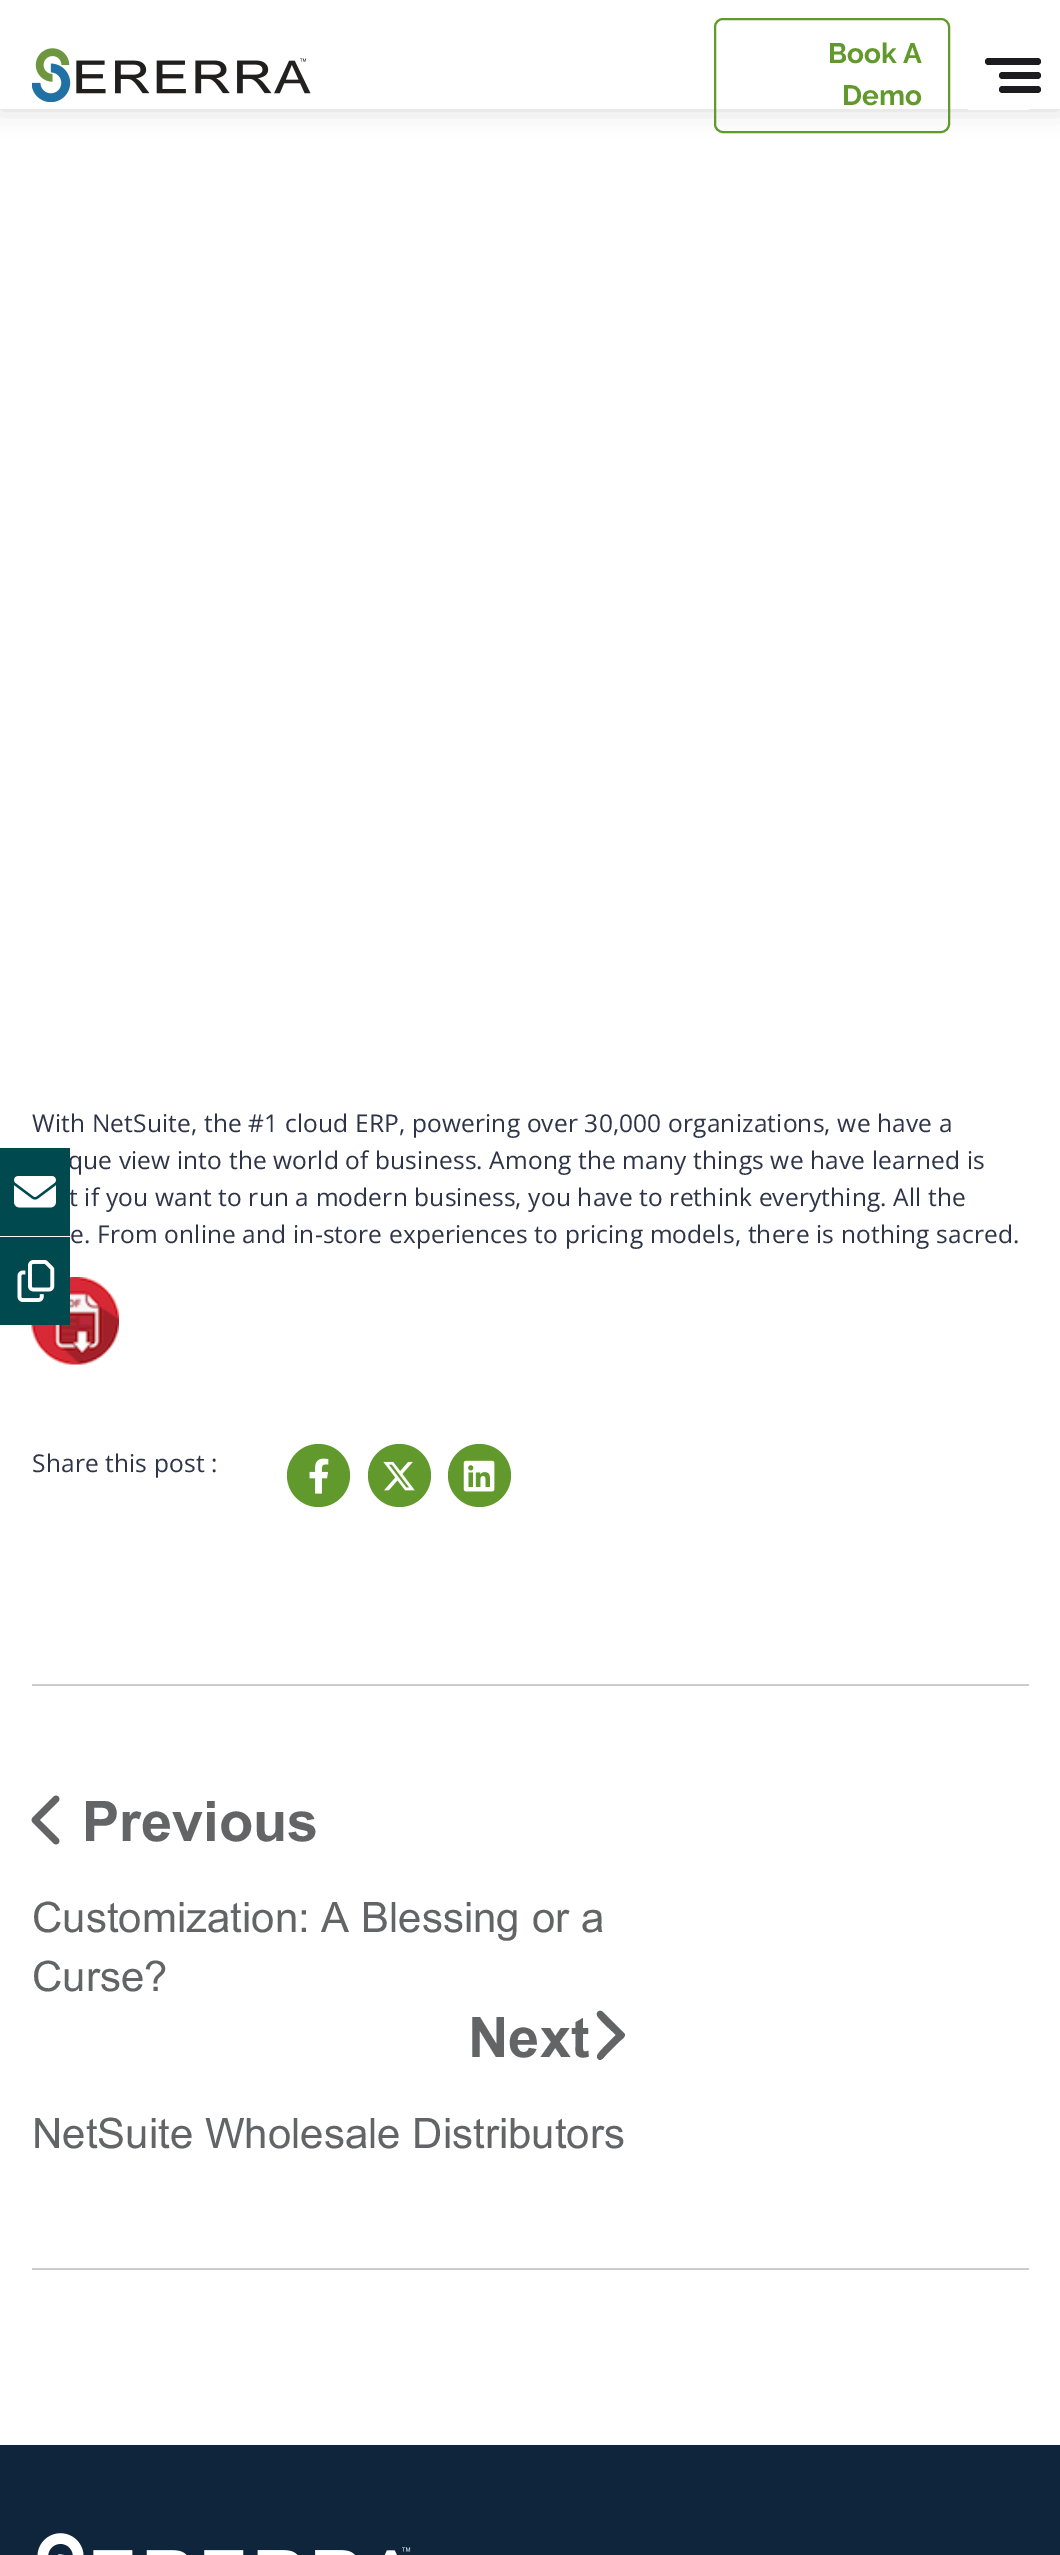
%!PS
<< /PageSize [1060 2555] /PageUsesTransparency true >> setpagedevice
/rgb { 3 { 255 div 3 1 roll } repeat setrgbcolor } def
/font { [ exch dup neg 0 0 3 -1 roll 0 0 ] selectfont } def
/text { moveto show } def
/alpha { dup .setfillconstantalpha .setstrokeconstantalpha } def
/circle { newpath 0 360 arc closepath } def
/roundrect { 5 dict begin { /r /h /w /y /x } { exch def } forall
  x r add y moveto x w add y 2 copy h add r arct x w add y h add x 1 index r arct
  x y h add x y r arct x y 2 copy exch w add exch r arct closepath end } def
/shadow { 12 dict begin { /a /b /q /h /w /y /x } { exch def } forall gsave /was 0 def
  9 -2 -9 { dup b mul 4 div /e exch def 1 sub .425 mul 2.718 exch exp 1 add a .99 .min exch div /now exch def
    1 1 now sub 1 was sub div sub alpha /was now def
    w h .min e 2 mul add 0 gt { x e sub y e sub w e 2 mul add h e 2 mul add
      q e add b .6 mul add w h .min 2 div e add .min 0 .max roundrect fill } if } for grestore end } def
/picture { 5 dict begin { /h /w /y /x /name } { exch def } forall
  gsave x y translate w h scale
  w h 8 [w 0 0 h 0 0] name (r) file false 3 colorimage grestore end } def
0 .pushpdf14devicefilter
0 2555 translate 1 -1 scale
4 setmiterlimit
255 255 255 rgb
0 0 1060 2555 rectfill
0 0 0 rgb
0 0 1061 109 0 13 0.16 shadow
255 255 255 rgb
0 0 1060 109 rectfill
(img_01.rgb) 32 48 279 54 picture
97 153 44 rgb
2 setlinewidth
715 19 234 113 8 roundrect stroke
255 255 255 rgb
968 109 61 1 rectfill
28 27 31 rgb
985 58 56 7 3.5 roundrect fill
999 72 42 7 3.5 roundrect fill
999 86 42 7 3.5 roundrect fill
(img_02.rgb) 31 1277 88 88 picture
97 153 44 rgb
318.5 1475.5 31.5 circle fill
(img_03.rgb) 309 1458 20 36 picture
399.5 1475.5 31.5 circle fill
(img_04.rgb) 383 1461 32 30 picture
479.5 1475.5 31.5 circle fill
(img_05.rgb) 463 1460 32 32 picture
204 204 204 rgb
32 1684 997 2 rectfill
32 2268 997 2 rectfill
(img_06.rgb) 31 1795 29 50 picture
99 100 102 rgb
624 2033 moveto 3 3 -2 6 -4 8 rcurveto -14 14 rlineto -2 2 -5 7 -8 4 rcurveto -1 -1 -1 -2 -1 -3 rcurveto 0 -3 16 -18 19 -21 rcurveto -3 -3 -19 -17 -19 -20 rcurveto -1 -3 3 -6 6 -3 rcurveto closepath fill
14 37 60 rgb
0 2445 1060 110 rectfill
0 73 79 rgb
0 1237 70 88 rectfill
(img_08.rgb) 17 1260 38 42 picture
(img_09.rgb) 37 2533 374 22 picture
/Raleway-Bold 28 font
97 153 44 rgb
(Book A) 828 63 text
(Demo) 842 105 text
/OpenSans-Regular 24.5 font
45 52 71 rgb
32 1132 moveto 0.15 0 (With NetSuite, the #1 cloud ERP, powering over 30,000 organizations, we have a) ashow
68 1169 moveto 0.15 0 (que view into the world of business. Among the many things we have learned is) ashow
69 1206 moveto 0.15 0 (t if you want to run a modern business, you have to rethink everything. All the) ashow
70 1243 moveto 0.15 0 (e. From online and in-store experiences to pricing models, there is nothing sacred.) ashow
32 1472 moveto 0.15 0 (Share this post :) ashow
/Arial-Bold 56 font
99 100 102 rgb
(Previous) 82 1841 text
/Arial-Regular 42 font
(Customization: A Blessing or a) 32 1932 text
(Curse?) 32 1991 text
/Arial-Bold 56 font
(Next) 468 2057 text
/Arial-Regular 42 font
(NetSuite Wholesale Distributors) 32 2148 text
0 73 79 rgb
0 1148 70 88 rectfill
(img_07.rgb) 14 1176 42 32 picture
.poppdf14devicefilter showpage
